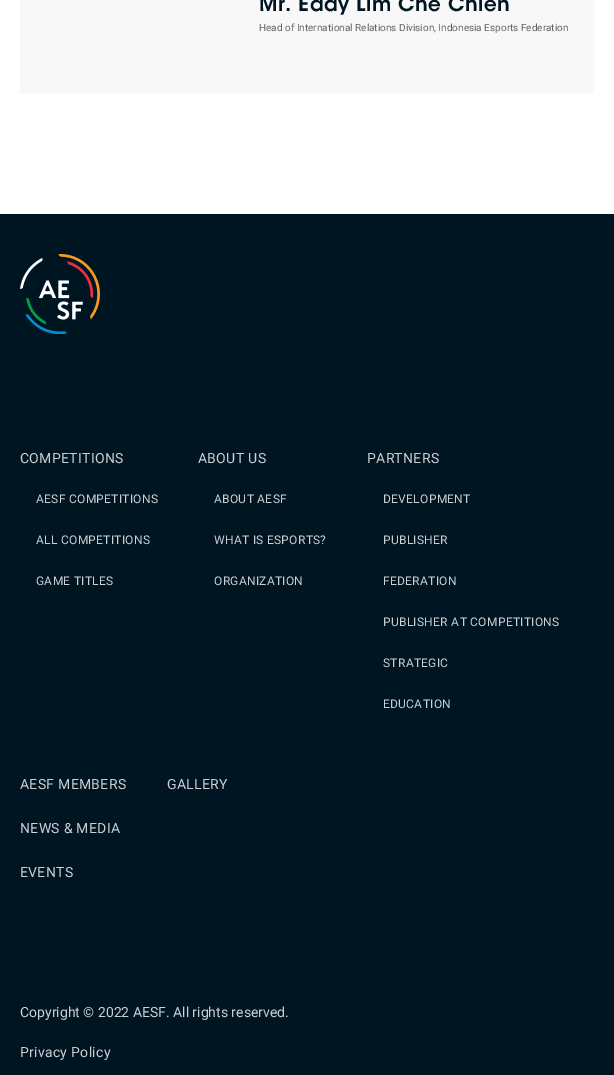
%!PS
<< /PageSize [614 1075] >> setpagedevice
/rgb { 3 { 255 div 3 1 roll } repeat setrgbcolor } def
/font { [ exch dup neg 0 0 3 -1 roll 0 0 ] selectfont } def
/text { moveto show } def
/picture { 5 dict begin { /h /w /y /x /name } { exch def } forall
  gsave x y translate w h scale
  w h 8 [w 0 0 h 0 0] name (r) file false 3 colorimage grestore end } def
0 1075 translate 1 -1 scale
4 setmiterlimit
0 21 34 rgb
0 0 614 1075 rectfill
255 255 255 rgb
0 0 614 214 rectfill
248 248 249 rgb
20 0 574 94 rectfill
(img_01.rgb) 20 254 80 80 picture
/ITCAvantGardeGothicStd-SemiBold 20 font
0 21 34 rgb
259 11 moveto 0.5 0 (Mr. Eddy Lim Che Chien) ashow
/Roboto-Regular 10 font
94 101 104 rgb
(Head of International Relations Division, Indonesia Esports Federation) 259 31 text
/Roboto-Regular 14 font
204 208 211 rgb
20 463 moveto 0.3 0 (COMPETITIONS) ashow
/Roboto-Regular 12 font
36 503 moveto 0.3 0 (AESF COMPETITIONS) ashow
36 544 moveto 0.3 0 (ALL COMPETITIONS) ashow
36 585 moveto 0.3 0 (GAME TITLES) ashow
/Roboto-Regular 14 font
198 463 moveto 0.3 0 (ABOUT US) ashow
/Roboto-Regular 12 font
214 503 moveto 0.3 0 (ABOUT AESF) ashow
214 544 moveto 0.3 0 (WHAT IS ESPORTS?) ashow
214 585 moveto 0.3 0 (ORGANIZATION) ashow
/Roboto-Regular 14 font
367 463 moveto 0.3 0 (PARTNERS) ashow
/Roboto-Regular 12 font
383 503 moveto 0.3 0 (DEVELOPMENT) ashow
383 544 moveto 0.3 0 (PUBLISHER) ashow
383 585 moveto 0.3 0 (FEDERATION) ashow
383 626 moveto 0.3 0 (PUBLISHER AT COMPETITIONS) ashow
383 667 moveto 0.3 0 (STRATEGIC) ashow
383 708 moveto 0.3 0 (EDUCATION) ashow
/Roboto-Regular 14 font
20 789 moveto 0.3 0 (AESF MEMBERS) ashow
20 833 moveto 0.3 0 (NEWS & MEDIA) ashow
20 877 moveto 0.3 0 (EVENTS) ashow
167 789 moveto 0.3 0 (GALLERY) ashow
(Copyright © 2022 AESF. All rights reserved.) 20 1017 text
20 1057 moveto 0.3 0 (Privacy Policy) ashow
showpage
